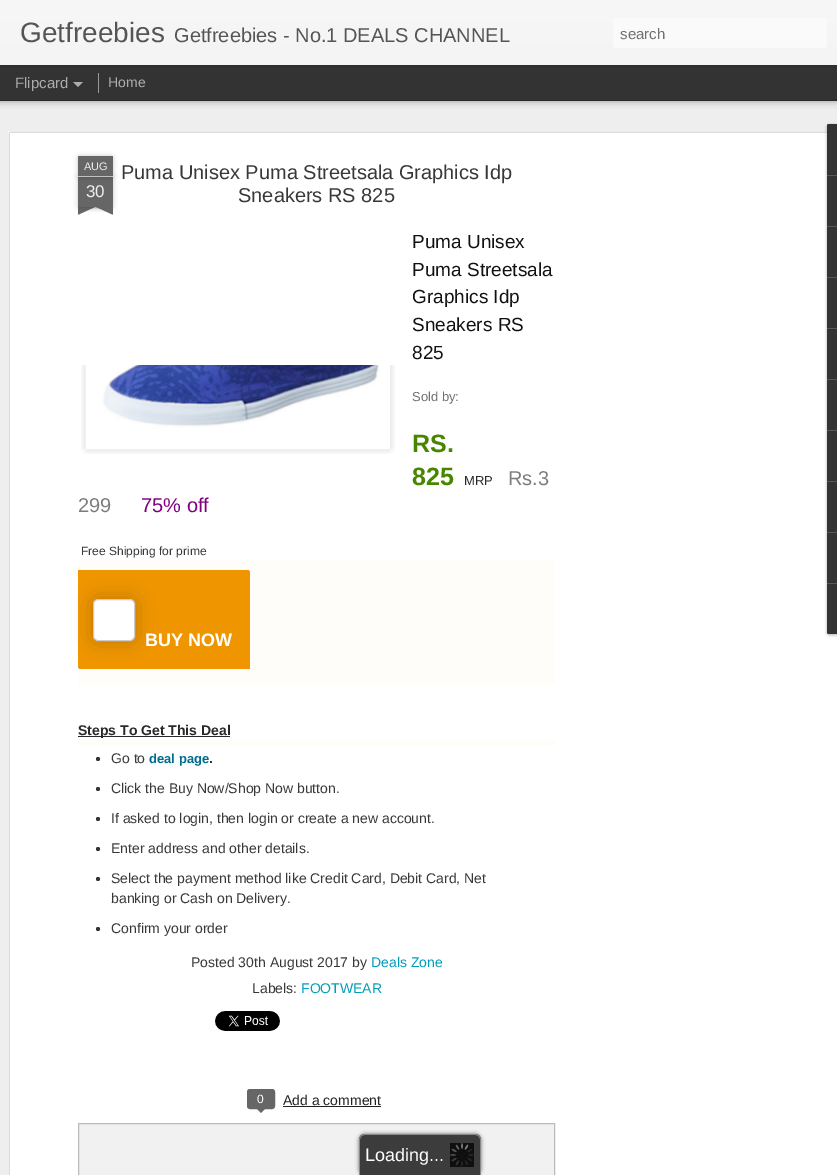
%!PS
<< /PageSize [837 1175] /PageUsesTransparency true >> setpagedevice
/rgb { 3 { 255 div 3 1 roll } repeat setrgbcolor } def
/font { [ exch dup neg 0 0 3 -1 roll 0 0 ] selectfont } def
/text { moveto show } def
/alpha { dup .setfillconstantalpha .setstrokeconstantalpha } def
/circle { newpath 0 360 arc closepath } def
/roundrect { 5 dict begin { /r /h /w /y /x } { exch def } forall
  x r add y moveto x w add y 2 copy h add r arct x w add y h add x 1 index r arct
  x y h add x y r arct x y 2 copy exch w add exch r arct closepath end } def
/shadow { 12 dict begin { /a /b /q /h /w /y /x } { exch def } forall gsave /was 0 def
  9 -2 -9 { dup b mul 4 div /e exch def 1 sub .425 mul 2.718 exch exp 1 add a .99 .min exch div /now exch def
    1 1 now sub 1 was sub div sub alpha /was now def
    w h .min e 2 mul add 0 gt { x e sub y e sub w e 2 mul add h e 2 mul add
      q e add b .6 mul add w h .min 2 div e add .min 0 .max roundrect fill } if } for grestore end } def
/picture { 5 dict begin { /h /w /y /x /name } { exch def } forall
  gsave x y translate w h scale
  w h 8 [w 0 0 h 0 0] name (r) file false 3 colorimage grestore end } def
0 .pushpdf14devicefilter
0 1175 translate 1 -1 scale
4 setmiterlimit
51 51 51 rgb
0 0 837 1175 rectfill
238 238 238 rgb
0 101 837 1074 rectfill
0 0 0 rgb
0 65 837 35 0 4 0.5 shadow
51 51 51 rgb
0 65 837 35 rectfill
153 153 153 rgb
98 73 1 20 rectfill
0 0 0 rgb
0 0 837 65 0 2.5 0.3 shadow
gsave 0 0 moveto 837 0 rlineto 0 65 rlineto -837 0 rlineto closepath clip newpath
<< /ShadingType 2 /ColorSpace /DeviceRGB /Coords [0 0 0 65] /Extend [true true] /Function << /FunctionType 2 /Domain [0 1] /C0 [0.969 0.969 0.969] /C1 [0.957 0.957 0.957] /N 1 >> >> shfill grestore
250 250 250 rgb
613 18 214 30 3 roundrect fill
173 173 173 rgb
73 82 moveto 10 0 rlineto -5 5 rlineto closepath fill
255 255 255 rgb
8 131 829 1044 rectfill
(img_01.rgb) 8 131 819 1044 picture
0 0 0 rgb
78 177 35 30 0 2.5 0.2 shadow
102 102 102 rgb
78 177 35 30 rectfill
0 0 0 rgb
78 156 35 21 1 2.5 0.2 shadow
102 102 102 rgb
79 156 moveto 33 0 rlineto 0.5 0 1 0.5 1 1 rcurveto 0 20 rlineto -35 0 rlineto 0 -20 rlineto 0 -0.5 0.5 -1 1 -1 rcurveto closepath fill
194 194 194 rgb
78 176 35 1 rectfill
gsave
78 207 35 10 rectclip
0 0 0 rgb
69 197 50 10 0 2.5 0.2 shadow
grestore
gsave
78 207 35 10 rectclip
102 102 102 rgb
69 208 moveto 46 -21 rlineto 4 9 rlineto -46 21 rlineto closepath fill
grestore
gsave
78 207 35 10 rectclip
0 0 0 rgb
72 197 50 10 0 2.5 0.2 shadow
grestore
gsave
78 207 35 10 rectclip
102 102 102 rgb
76 187 moveto 46 21 rlineto -4 9 rlineto -46 -21 rlineto closepath fill
grestore
254 253 250 rgb
78 427 477 258 rectfill
255 255 255 rgb
78 427 477 133 3 roundrect fill
(img_02.rgb) 81 365 314 89 picture
(img_03.rgb) 85 365 304 85 picture
245 146 0 rgb
79 668 moveto 0 1 rlineto 171 0 rlineto 0 -98 rlineto -1 0 rlineto 0 97 rlineto closepath fill
239 149 0 rgb
78 570 171 98 rectfill
0 0 0 rgb
93 599 42 42 5 10 0.2 shadow
255 255 255 rgb
93.5 599.5 41 41 4.5 roundrect gsave fill grestore
204 204 204 rgb
stroke
254 253 250 rgb
78 740 477 6 rectfill
41 41 41 rgb
78 736 152 1 rectfill
51 51 51 rgb
98 759 2 circle fill
98 789 2 circle fill
98 819 2 circle fill
98 849 2 circle fill
98 879 2 circle fill
98 929 2 circle fill
(img_04.rgb) 215 1011 65 20 picture
102 102 102 rgb
247.5 1089.5 27 19 2.5 roundrect gsave fill grestore
stroke
256 1108 moveto 10 0 rlineto -5 5 rlineto closepath fill
34 34 34 rgb
283 1106 98 1 rectfill
241 241 241 rgb
78.5 1123.5 moveto 476 0 rlineto 0 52 rlineto -476 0 rlineto closepath gsave fill grestore
187 187 187 rgb
stroke
0 0 0 rgb
827 125 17 510 2 1.5 0.3 shadow
51 51 51 rgb
829 124 moveto 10 0 rlineto 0 510 rlineto -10 0 rlineto -1 0 -2 -1 -2 -2 rcurveto 0 -506 rlineto 0 -1 1 -2 2 -2 rcurveto closepath fill
829 124 moveto 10 0 rlineto 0 51 rlineto -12 0 rlineto 0 -49 rlineto 0 -1 1 -2 2 -2 rcurveto closepath fill
88 88 88 rgb
827 175 10 1 rectfill
827 226 10 1 rectfill
827 277 10 1 rectfill
827 328 10 1 rectfill
827 379 10 1 rectfill
827 430 10 1 rectfill
827 481 10 1 rectfill
827 532 10 1 rectfill
51 51 51 rgb
827 583 moveto 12 0 rlineto 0 51 rlineto -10 0 rlineto -1 0 -2 -1 -2 -2 rcurveto closepath fill
88 88 88 rgb
827 583 10 1 rectfill
99 99 99 rgb
359 1134 122 41 6 2 1 shadow
60 60 60 rgb
365 1134 moveto 110 0 rlineto 3.5 0 6 2.5 6 6 rcurveto 0 35 rlineto -122 0 rlineto 0 -35 rlineto 0 -3.5 2.5 -6 6 -6 rcurveto closepath fill
137 137 137 rgb
365 1134 moveto 110 0 rlineto 3 0 6 3 6 6 rcurveto 0 35 rlineto -122 0 rlineto 0 -35 rlineto 0 -3 3 -6 6 -6 rcurveto closepath 365 1135 moveto 110 0 rlineto 3 0 5 2 5 5 rcurveto 0 35 rlineto -120 0 rlineto 0 -35 rlineto 0 -3 2 -5 5 -5 rcurveto closepath eofill
(img_05.rgb) 450 1143 24 24 picture
/LiberationSans-Regular 28 font
85 85 85 rgb
(Getfreebies) 20 42 text
/LiberationSans-Regular 20 font
(Getfreebies - No.1 DEALS CHANNEL) 174 42 text
/LiberationSans-Regular 15 font
112 112 112 rgb
(search) 620 39 text
173 173 173 rgb
(Flipcard) 15 88 text
/LiberationSans-Regular 14 font
(Home) 108 87 text
/LiberationSans-Regular 11 font
238 238 238 rgb
(AUG) 84 170 text
/LiberationSans-Regular 17 font
(30) 86 197 text
/LiberationSans-Regular 20 font
56 56 56 rgb
(Puma Unisex Puma Streetsala Graphics Idp) 121 179 text
(Sneakers RS 825) 238 202 text
/LiberationSans-Regular 19 font
17 17 17 rgb
(Puma Unisex) 412 248 text
(Puma Streetsala) 412 276 text
(Graphics Idp) 412 303 text
(Sneakers RS) 412 331 text
(825) 412 359 text
/LiberationSans-Regular 13 font
112 112 112 rgb
(Sold by:) 412 401 text
/LiberationSans-Bold 25 font
72 134 0 rgb
(RS.) 412 452 text
(825) 412 485 text
/LiberationSans-Regular 13 font
41 41 41 rgb
(MRP) 464 485 text
/LiberationSans-Regular 20 font
125 125 125 rgb
(Rs.3) 508 485 text
(299) 78 512 text
128 0 128 rgb
(75% off) 141 512 text
/LiberationSans-Regular 12 font
56 56 56 rgb
(Free Shipping for prime) 81 555 text
/LiberationSans-Bold 18 font
255 255 255 rgb
(BUY NOW) 145 646 text
/LiberationSans-Bold 14 font
41 41 41 rgb
(Steps To Get This Deal) 78 735 text
/LiberationSans-Regular 14 font
56 56 56 rgb
(Go to) 111 763 text
/LiberationSans-Bold 13 font
0 109 144 rgb
(deal page) 149 763 text
/LiberationSans-Bold 14 font
56 56 56 rgb
(.) 209 763 text
/LiberationSans-Regular 14 font
(Click the Buy Now/Shop Now button.) 111 793 text
(If asked to login, then login or create a new account.) 111 823 text
(Enter address and other details.) 111 853 text
(Select the payment method like Credit Card, Debit Card, Net) 111 883 text
(banking or Cash on Delivery.) 111 903 text
(Confirm your order) 111 933 text
(Posted 30th August 2017 by) 191 967 text
0 158 184 rgb
(Deals Zone) 371 967 text
56 56 56 rgb
(Labels:) 252 993 text
0 158 184 rgb
(FOOTWEAR) 301 993 text
/LiberationSans-Regular 12 font
255 255 255 rgb
(0) 257 1103 text
/LiberationSans-Regular 14 font
34 34 34 rgb
(Add a comment) 283 1105 text
/LiberationSans-Regular 18 font
255 255 255 rgb
(Loading...) 365 1161 text
.poppdf14devicefilter showpage
